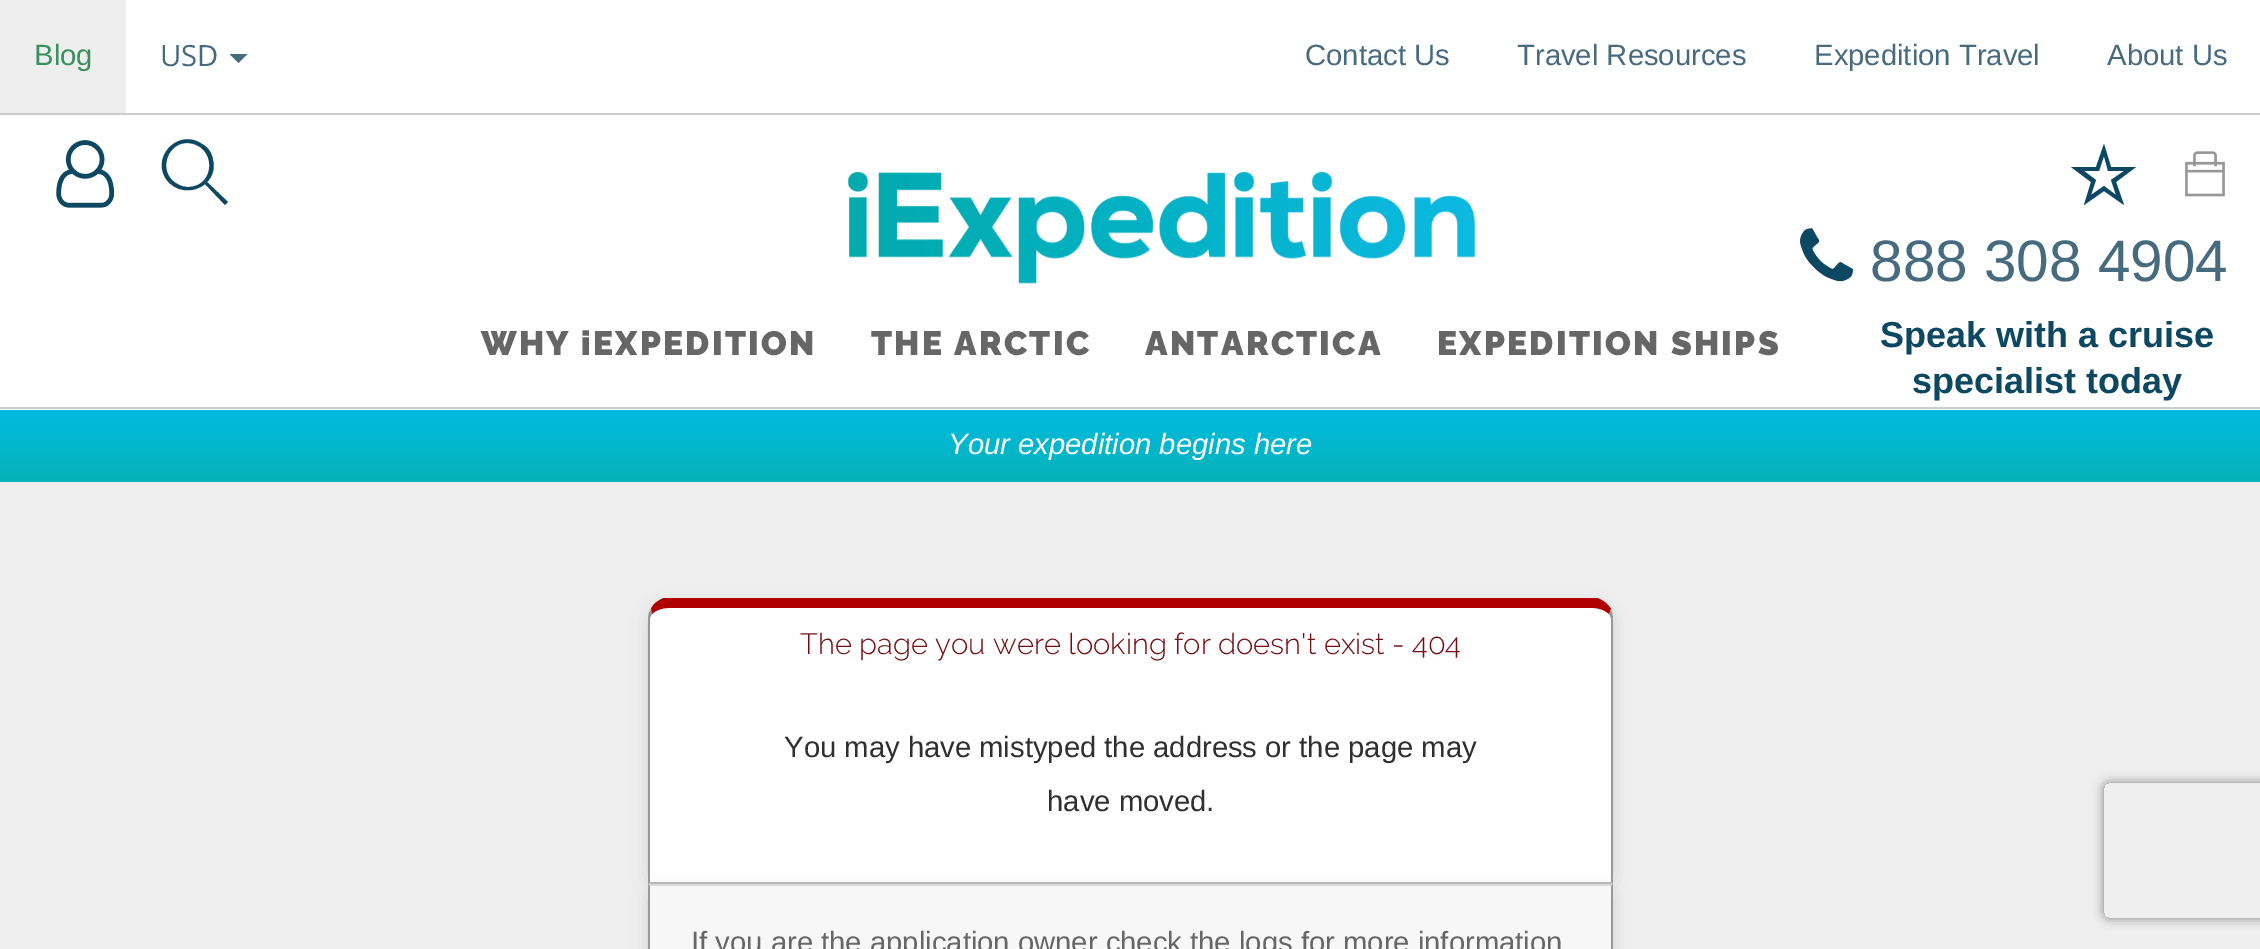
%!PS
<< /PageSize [2260 949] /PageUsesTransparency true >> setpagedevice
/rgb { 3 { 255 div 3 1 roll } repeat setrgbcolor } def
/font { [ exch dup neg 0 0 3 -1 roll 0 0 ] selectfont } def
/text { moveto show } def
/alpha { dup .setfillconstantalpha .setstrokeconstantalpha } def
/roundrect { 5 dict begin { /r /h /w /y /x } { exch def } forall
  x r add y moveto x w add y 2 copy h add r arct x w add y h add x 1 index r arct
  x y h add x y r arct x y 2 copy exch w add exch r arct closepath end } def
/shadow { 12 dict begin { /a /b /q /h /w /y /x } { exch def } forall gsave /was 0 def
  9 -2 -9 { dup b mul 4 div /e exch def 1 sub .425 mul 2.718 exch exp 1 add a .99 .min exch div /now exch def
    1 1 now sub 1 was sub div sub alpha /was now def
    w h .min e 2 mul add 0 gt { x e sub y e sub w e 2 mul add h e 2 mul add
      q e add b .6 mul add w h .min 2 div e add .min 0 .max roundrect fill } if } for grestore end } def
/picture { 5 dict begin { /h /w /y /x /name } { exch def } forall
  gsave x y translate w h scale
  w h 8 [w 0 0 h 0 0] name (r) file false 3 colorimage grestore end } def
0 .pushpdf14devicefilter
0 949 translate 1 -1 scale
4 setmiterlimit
239 239 239 rgb
0 0 2260 949 rectfill
255 255 255 rgb
0 0 2260 410 rectfill
204 204 204 rgb
0 113 2260 2 rectfill
238 238 238 rgb
0 0 126 113 rectfill
70 106 126 rgb
229.5 54 moveto 18 0 rlineto -9 9 rlineto closepath fill
(img_01.rgb) 56 140 59 68 picture
13 72 99 rgb
228 202 moveto -21 -20 rlineto 6 -6 8 -14 6 -22 rcurveto -1 -7 -5 -13 -11 -16 rcurveto -23 -16 -51 12 -36 35 rcurveto 9 13 27 15 39 5 rcurveto 20 21 rlineto closepath 188 187 moveto -6 0 -12 -3 -16 -7 rcurveto -13 -13 -3 -38 16 -37 rcurveto 29 2 28 44 0 44 rcurveto closepath fill
2136 167 moveto -25 0 rlineto -7 -23 rlineto -8 23 rlineto -25 0 rlineto 20 15 rlineto -7 23 rlineto 20 -14 rlineto 20 14 rlineto -8 -23 rlineto closepath 2116 195 moveto -12 -9 rlineto -13 9 rlineto 5 -15 rlineto -12 -9 rlineto 15 0 rlineto 5 -15 rlineto 4 15 rlineto 16 0 rlineto -13 9 rlineto closepath fill
(img_02.rgb) 2185 151 40 46 picture
204 204 204 rgb
0 407 2260 2 rectfill
(img_03.rgb) 847 171 628 113 picture
(img_04.rgb) 1800 228 53 54 picture
gsave 0 410 moveto 2260 0 rlineto 0 72 rlineto -2260 0 rlineto closepath clip newpath
<< /ShadingType 2 /ColorSpace /DeviceRGB /Coords [1131 482 1131 410] /Extend [true true] /Function << /FunctionType 2 /Domain [0 1] /C0 [0.024 0.698 0.722] /C1 [0 0.737 0.878] /N 1 >> >> shfill grestore
50 50 50 rgb
648 605 965 286 20 9 0.17 shadow
255 255 255 rgb
668 608 moveto 925 0 rlineto 10 0 18 5 18 11 rcurveto 0 263 rlineto -961 0 rlineto 0 -263 rlineto 0 -6 8 -11 18 -11 rcurveto closepath fill
176 1 0 rgb
668 608 moveto -7 0 -13 3 -16 6 rcurveto -1 -5 rlineto 2 -5 7 -9 13 -11 rcurveto 933 0 rlineto 6 2 11 6 14 11 rcurveto -2 5 rlineto -3 -3 -9 -6 -16 -6 rcurveto closepath fill
153 153 153 rgb
1611 609 moveto 1 3 2 7 2 10 rcurveto 0 265 rlineto -2 -2 rlineto 0 -264 rlineto -2 -4 rlineto closepath fill
187 187 187 rgb
1613 884 moveto -2 -2 rlineto -961 0 rlineto -2 2 rlineto closepath fill
153 153 153 rgb
648 619 moveto 0 265 rlineto 2 -2 rlineto 0 -264 rlineto 2 -4 rlineto -1 -5 rlineto -2 3 -3 6 -3 10 rcurveto closepath fill
50 50 50 rgb
648 891 965 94 9 9 0.17 shadow
247 247 247 rgb
648 884 965 65 rectfill
218 218 218 rgb
650 886 moveto -2 -2 rlineto 965 0 rlineto -2 2 rlineto closepath fill
153 153 153 rgb
1613 884 moveto 0 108 rlineto 0 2 -1 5 -3 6 rcurveto -1 -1 rlineto 2 -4 rlineto 0 -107 rlineto closepath fill
648 884 moveto 0 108 rlineto 0 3 1 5 3 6 rcurveto 1 -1 rlineto -2 -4 rlineto 0 -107 rlineto closepath fill
gsave
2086 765 moveto 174 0 rlineto 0 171 rlineto -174 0 rlineto closepath 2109 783 moveto 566 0 rlineto 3 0 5 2 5 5 rcurveto 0 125 rlineto 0 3 -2 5 -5 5 rcurveto -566 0 rlineto -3 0 -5 -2 -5 -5 rcurveto 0 -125 rlineto 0 -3 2 -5 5 -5 rcurveto closepath eoclip newpath
128 128 128 rgb
2104 783 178 135 5 5.5 1 shadow
grestore
/LiberationSans-Regular 29.25 font
57 143 93 rgb
(Blog) 34 65 text
/OpenSans-Regular 29.25 font
70 106 126 rgb
(USD) 160 66 text
/LiberationSans-Regular 29.25 font
(Contact Us) 1305 65 text
(Travel Resources) 1517 65 text
(Expedition Travel) 1814 65 text
(About Us) 2107 65 text
/Raleway-Black 33.75 font
102 102 102 rgb
481 355 moveto 2.25 0 (WHY iEXPEDITION) ashow
871 355 moveto 2.25 0 (THE ARCTIC) ashow
1145 355 moveto 2.25 0 (ANTARCTICA) ashow
1437 355 moveto 2.25 0 (EXPEDITION SHIPS) ashow
/LiberationSans-Regular 58.5 font
70 106 126 rgb
(888 308 4904) 1870 281 text
/LiberationSans-Bold 36 font
13 72 99 rgb
(Speak with a cruise) 1880 347 text
(specialist today) 1912 393 text
/LiberationSans-Italic 29.25 font
255 255 255 rgb
(Your expedition begins here) 948 454 text
/Raleway-Light 29.25 font
115 14 21 rgb
(The page you were looking for doesn't exist - 404) 800 654 text
/LiberationSans-Regular 29.25 font
46 47 48 rgb
(You may have mistyped the address or the page may) 784 757 text
(have moved.) 1047 811 text
102 102 102 rgb
(If you are the application owner check the logs for more information) 691 952 text
.poppdf14devicefilter showpage
